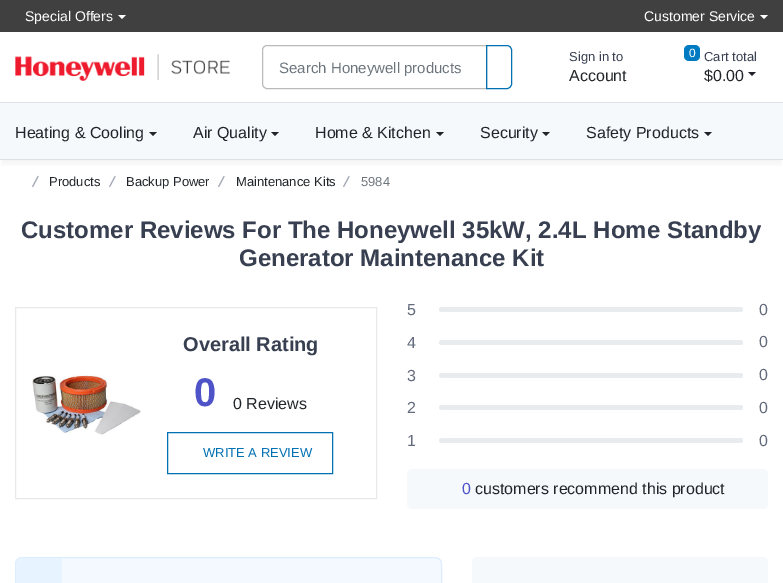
%!PS
<< /PageSize [783 583] /PageUsesTransparency true >> setpagedevice
/rgb { 3 { 255 div 3 1 roll } repeat setrgbcolor } def
/font { [ exch dup neg 0 0 3 -1 roll 0 0 ] selectfont } def
/text { moveto show } def
/alpha { dup .setfillconstantalpha .setstrokeconstantalpha } def
/roundrect { 5 dict begin { /r /h /w /y /x } { exch def } forall
  x r add y moveto x w add y 2 copy h add r arct x w add y h add x 1 index r arct
  x y h add x y r arct x y 2 copy exch w add exch r arct closepath end } def
/shadow { 12 dict begin { /a /b /q /h /w /y /x } { exch def } forall gsave /was 0 def
  9 -2 -9 { dup b mul 4 div /e exch def 1 sub .425 mul 2.718 exch exp 1 add a .99 .min exch div /now exch def
    1 1 now sub 1 was sub div sub alpha /was now def
    w h .min e 2 mul add 0 gt { x e sub y e sub w e 2 mul add h e 2 mul add
      q e add b .6 mul add w h .min 2 div e add .min 0 .max roundrect fill } if } for grestore end } def
/picture { 5 dict begin { /h /w /y /x /name } { exch def } forall
  gsave x y translate w h scale
  w h 8 [w 0 0 h 0 0] name (r) file false 3 colorimage grestore end } def
0 .pushpdf14devicefilter
0 583 translate 1 -1 scale
4 setmiterlimit
255 255 255 rgb
0 0 783 583 rectfill
gsave
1 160 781 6 rectclip
0 0 0 rgb
1 5 781 158 0 6 0.06 shadow
grestore
64 64 64 rgb
0 0 783 32 rectfill
255 255 255 rgb
118 15 moveto 8 0 rlineto -4 4 rlineto closepath fill
760 15 moveto 8 0 rlineto -4 4 rlineto closepath fill
(img_01.rgb) 15 54 215 27 picture
186 186 186 rgb
267 45.5 moveto 219.5 0 rlineto 0 43 rlineto -219.5 0 rlineto -2.5 0 -4.5 -2 -4.5 -4.5 rcurveto 0 -34 rlineto 0 -2.5 2 -4.5 4.5 -4.5 rcurveto closepath stroke
0 113 179 rgb
486.5 45.5 moveto 20.5 0 rlineto 2.5 0 4.5 2 4.5 4.5 rcurveto 0 34 rlineto 0 2.5 -2 4.5 -4.5 4.5 rcurveto -20.5 0 rlineto closepath stroke
0 123 194 rgb
684 45 16 16 5 roundrect fill
33 37 41 rgb
748 72 moveto 8 0 rlineto -4 4 rlineto closepath fill
246 249 252 rgb
0 103 783 56 rectfill
222 226 230 rgb
0 102 783 1 rectfill
0 159 783 1 rectfill
33 37 41 rgb
149 132 moveto 8 0 rlineto -4 4 rlineto closepath fill
271 132 moveto 8 0 rlineto -4 4 rlineto closepath fill
436 132 moveto 8 0 rlineto -4 4 rlineto closepath fill
542 132 moveto 8 0 rlineto -4 4 rlineto closepath fill
704 132 moveto 8 0 rlineto -4 4 rlineto closepath fill
233 233 233 rgb
15.5 307.5 361 191 rectstroke
(img_02.rgb) 32 374 109 61 picture
0 113 179 rgb
167.5 432.5 165 41 rectstroke
233 236 239 rgb
439 307 304 5 2.5 roundrect fill
439 340 304 5 2.5 roundrect fill
439 373 304 5 2.5 roundrect fill
439 405 304 5 2.5 roundrect fill
439 438 304 5 2.5 roundrect fill
246 249 252 rgb
407 469 361 40 5 roundrect fill
243 249 255 rgb
15.5 557.5 426 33 6.5 roundrect gsave fill grestore
219 237 255 rgb
stroke
231 243 255 rgb
23 558 moveto 39 0 rlineto 0 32 rlineto -39 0 rlineto -4 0 -7 -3 -7 -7 rcurveto 0 -18 rlineto 0 -4 3 -7 7 -7 rcurveto closepath fill
246 249 252 rgb
472 557 296 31 5 roundrect fill
/LiberationSans-Regular 14 font
255 255 255 rgb
(Special Offers) 25 21 text
(Customer Service) 644 21 text
/LiberationSans-Regular 15 font
108 117 125 rgb
(Search Honeywell products) 279 73 text
/LiberationSans-Regular 13 font
55 63 80 rgb
(Sign in to) 569 61 text
/LiberationSans-Regular 16 font
33 37 41 rgb
(Account) 569 81 text
/LiberationSans-Regular 12 font
255 255 255 rgb
(0) 689 57 text
/LiberationSans-Regular 13 font
55 63 80 rgb
(Cart total) 704 61 text
/LiberationSans-Regular 16 font
33 37 41 rgb
($0.00) 704 81 text
(Heating & Cooling) 15 138 text
(Air Quality) 193 138 text
(Home & Kitchen) 315 138 text
(Security) 480 138 text
(Safety Products) 586 138 text
/Pacifico-Regular 12 font
166 172 183 rgb
(/) 32 187 text
/LiberationSans-Regular 13 font
33 37 41 rgb
(Products) 49 186 text
/Pacifico-Regular 12 font
166 172 183 rgb
(/) 109 187 text
/LiberationSans-Regular 13 font
33 37 41 rgb
(Backup Power) 126 186 text
/Pacifico-Regular 12 font
166 172 183 rgb
(/) 218 187 text
/LiberationSans-Regular 13 font
33 37 41 rgb
(Maintenance Kits) 236 186 text
/Pacifico-Regular 12 font
166 172 183 rgb
(/) 343 187 text
/LiberationSans-Regular 13 font
108 117 125 rgb
(5984) 361 186 text
/LiberationSans-Bold 24 font
55 63 80 rgb
(Customer Reviews For The Honeywell 35kW, 2.4L Home Standby) 21 238 text
(Generator Maintenance Kit) 239 266 text
/LiberationSans-Bold 20 font
(Overall Rating) 183 351 text
/LiberationSans-Bold 40 font
78 84 200 rgb
(0) 194 406 text
/LiberationSans-Regular 16 font
33 37 41 rgb
(0 Reviews) 233 409 text
/LiberationSans-Regular 13 font
0 113 179 rgb
(WRITE A REVIEW) 203 457 text
/LiberationSans-Regular 16 font
99 107 124 rgb
(5) 407 315 text
(0) 759 315 text
(4) 407 348 text
(0) 759 347 text
(3) 407 381 text
(0) 759 380 text
(2) 407 413 text
(0) 759 413 text
(1) 407 446 text
(0) 759 446 text
78 84 200 rgb
(0) 462 494 text
33 37 41 rgb
(customers recommend this product) 475 494 text
.poppdf14devicefilter showpage
